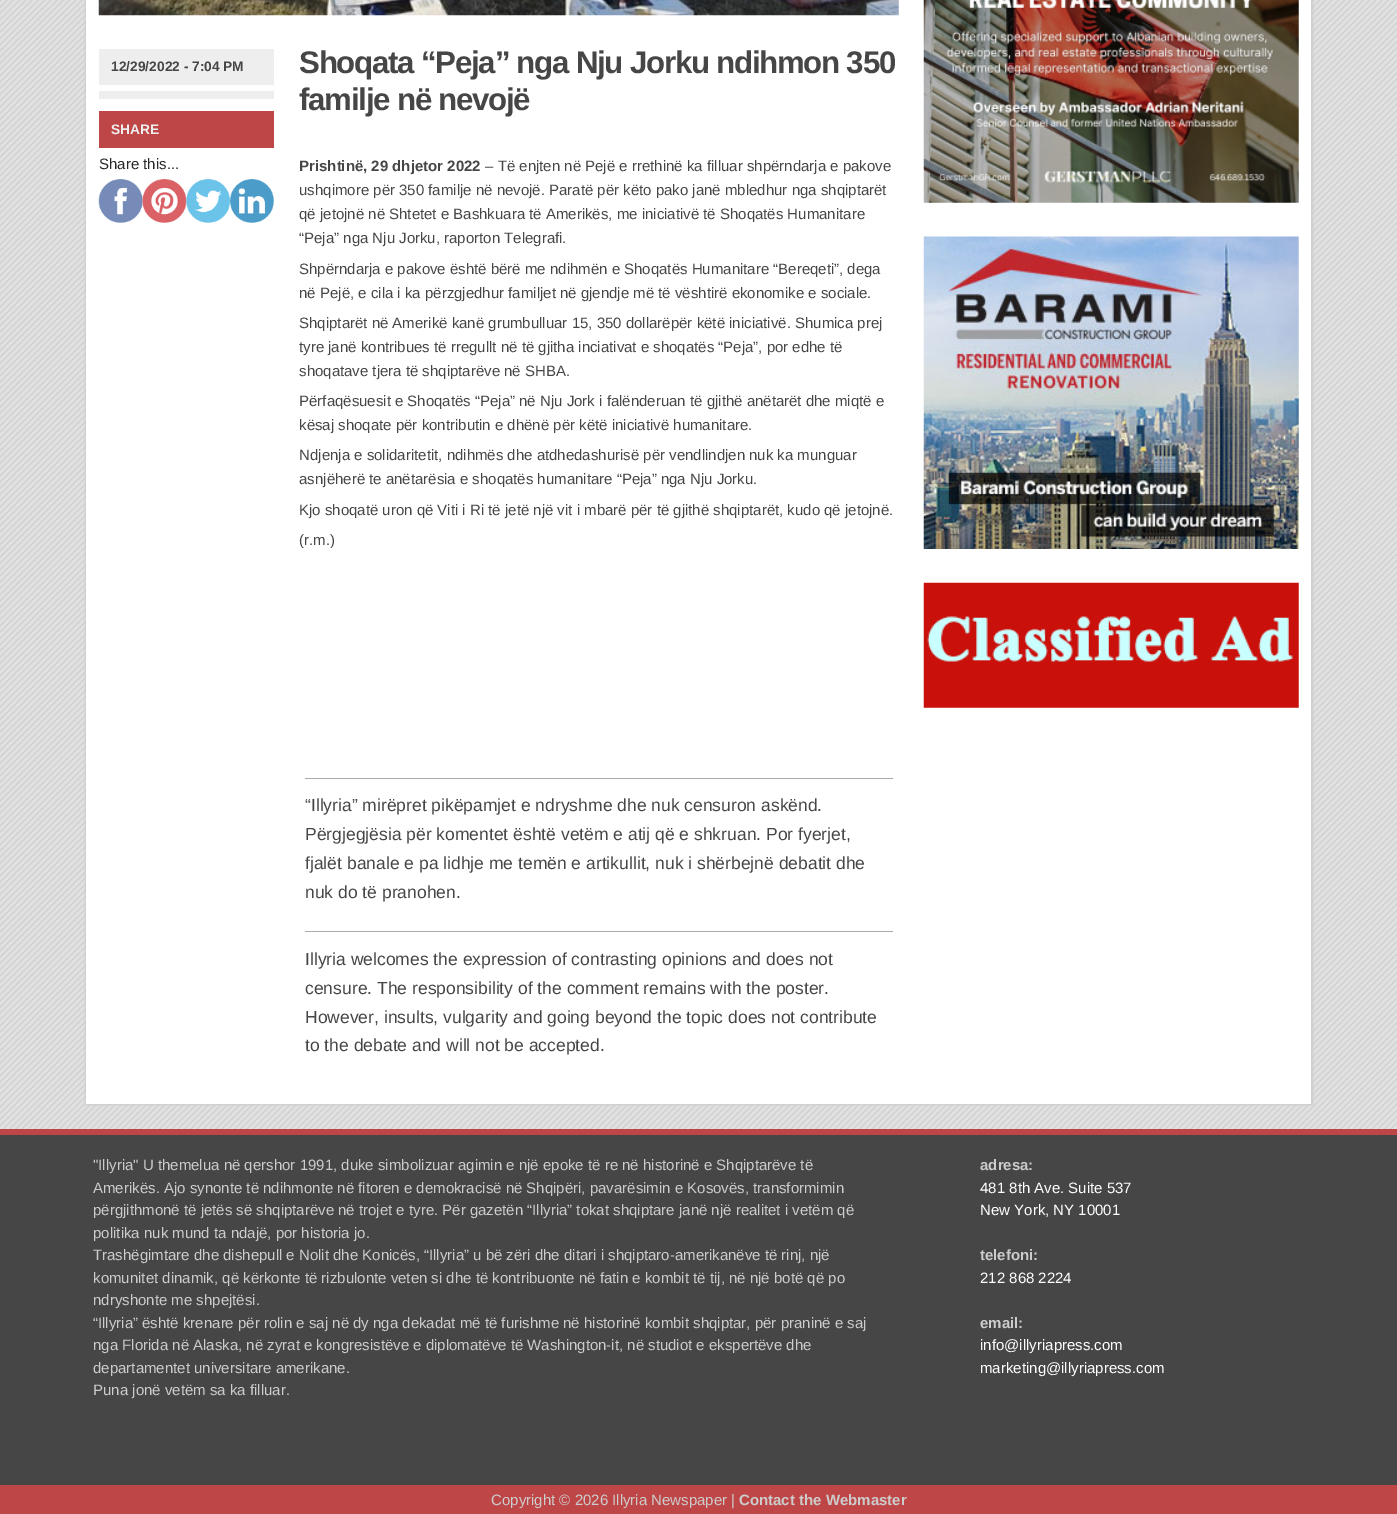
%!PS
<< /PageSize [1397 1514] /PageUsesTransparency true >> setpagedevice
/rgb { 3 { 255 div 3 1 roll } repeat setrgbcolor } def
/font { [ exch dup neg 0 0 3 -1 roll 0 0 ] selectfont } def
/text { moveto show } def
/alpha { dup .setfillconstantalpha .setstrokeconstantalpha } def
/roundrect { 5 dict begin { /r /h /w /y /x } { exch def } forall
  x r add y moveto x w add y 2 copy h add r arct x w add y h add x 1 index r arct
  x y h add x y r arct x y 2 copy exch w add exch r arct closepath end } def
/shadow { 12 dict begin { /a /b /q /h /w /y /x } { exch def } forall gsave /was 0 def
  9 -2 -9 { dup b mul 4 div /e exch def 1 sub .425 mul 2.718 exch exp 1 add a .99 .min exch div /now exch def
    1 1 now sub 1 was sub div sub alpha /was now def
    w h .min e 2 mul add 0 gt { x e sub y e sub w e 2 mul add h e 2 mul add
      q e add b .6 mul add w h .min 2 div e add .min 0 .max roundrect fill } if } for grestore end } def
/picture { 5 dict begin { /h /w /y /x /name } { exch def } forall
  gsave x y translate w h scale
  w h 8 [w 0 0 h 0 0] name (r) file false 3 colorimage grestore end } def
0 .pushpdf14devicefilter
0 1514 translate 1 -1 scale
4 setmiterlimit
255 255 255 rgb
0 0 1397 1514 rectfill
(img_01.rgb) 0 0 1397 1129 picture
204 204 204 rgb
85 -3 1228 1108 0 1 1 shadow
255 255 255 rgb
86 0 1225 1104 rectfill
(img_02.rgb) 98 0 801 16 picture
238 238 238 rgb
99 49 175 36 rectfill
99 91 175 8 rectfill
191 70 70 rgb
99 111 175 37 rectfill
(img_03.rgb) 98 179 45 44 picture
(img_04.rgb) 142 179 45 44 picture
(img_05.rgb) 186 179 44 44 picture
(img_06.rgb) 230 179 44 44 picture
170 170 170 rgb
305 778 588 1 rectfill
305 931 588 1 rectfill
(img_07.rgb) 923 0 376 203 picture
(img_08.rgb) 923 236 376 313 picture
(img_09.rgb) 923 582 376 126 picture
70 70 71 rgb
0 1135 1397 350 rectfill
191 70 70 rgb
0 1129 1397 6 rectfill
0 1485 1397 29 rectfill
/LiberationSans-Bold 13.75 font
70 70 71 rgb
(12/29/2022 - 7:04 PM) 111 71 text
238 238 238 rgb
(SHARE) 111 134 text
/LiberationSans-Regular 15 font
39 39 39 rgb
(Share this...) 99 169 text
/LiberationSans-Bold 31.25 font
70 70 71 rgb
299 73 moveto -1.25 0 (Shoqata “Peja” nga Nju Jorku ndihmon 350) ashow
299 110 moveto -1.25 0 (familje në nevojë) ashow
/LiberationSans-Bold 15 font
(Prishtinë, 29 dhjetor 2022) 299 171 text
/LiberationSans-Regular 15 font
(– Të enjten në Pejë e rrethinë ka filluar shpërndarja e pakove) 485 171 text
(ushqimore për 350 familje në nevojë. Paratë për këto pako janë mbledhur nga shqiptarët) 299 195 text
(që jetojnë në Shtetet e Bashkuara të Amerikës, me iniciativë të Shoqatës Humanitare) 299 219 text
(“Peja” nga Nju Jorku, raporton Telegrafi.) 299 243 text
(Shpërndarja e pakove është bërë me ndihmën e Shoqatës Humanitare “Bereqeti”, dega) 299 274 text
(në Pejë, e cila i ka përzgjedhur familjet në gjendje më të vështirë ekonomike e sociale.) 299 298 text
(Shqiptarët në Amerikë kanë grumbulluar 15, 350 dollarëpër këtë iniciativë. Shumica prej) 299 328 text
(tyre janë kontribues të rregullt në të gjitha inciativat e shoqatës “Peja”, por edhe të) 299 352 text
(shoqatave tjera të shqiptarëve në SHBA.) 299 376 text
(Përfaqësuesit e Shoqatës “Peja” në Nju Jork i falënderuan të gjithë anëtarët dhe miqtë e) 299 406 text
(kësaj shoqate për kontributin e dhënë për këtë iniciativë humanitare.) 299 430 text
(Ndjenja e solidaritetit, ndihmës dhe atdhedashurisë për vendlindjen nuk ka munguar) 299 460 text
(asnjëherë te anëtarësia e shoqatës humanitare “Peja” nga Nju Jorku.) 299 484 text
(Kjo shoqatë uron që Viti i Ri të jetë një vit i mbarë për të gjithë shqiptarët, kudo që jetojnë.) 299 515 text
(\(r.m.\)) 299 545 text
/LiberationSans-Regular 17.5 font
(“Illyria” mirëpret pikëpamjet e ndryshme dhe nuk censuron askënd.) 305 811 text
(Përgjegjësia për komentet është vetëm e atij që e shkruan. Por fyerjet,) 305 840 text
(fjalët banale e pa lidhje me temën e artikullit, nuk i shërbejnë debatit dhe) 305 869 text
(nuk do të pranohen.) 305 898 text
(Illyria welcomes the expression of contrasting opinions and does not) 305 965 text
(censure. The responsibility of the comment remains with the poster.) 305 994 text
(However, insults, vulgarity and going beyond the topic does not contribute) 305 1023 text
(to the debate and will not be accepted.) 305 1051 text
/LiberationSans-Regular 15 font
204 204 204 rgb
("Illyria" U themelua në qershor 1991, duke simbolizuar agimin e një epoke të re në historinë e Shqiptarëve të) 93 1170 text
(Amerikës. Ajo synonte të ndihmonte në fitoren e demokracisë në Shqipëri, pavarësimin e Kosovës, transformimin) 93 1193 text
(përgjithmonë të jetës së shqiptarëve në trojet e tyre. Për gazetën “Illyria” tokat shqiptare janë një realitet i vetëm që) 93 1215 text
(politika nuk mund ta ndajë, por historia jo.) 93 1238 text
(Trashëgimtare dhe dishepull e Nolit dhe Konicës, “Illyria” u bë zëri dhe ditari i shqiptaro-amerikanëve të rinj, një) 93 1260 text
(komunitet dinamik, që kërkonte të rizbulonte veten si dhe të kontribuonte në fatin e kombit të tij, në një botë që po) 93 1283 text
(ndryshonte me shpejtësi.) 93 1305 text
(“Illyria” është krenare për rolin e saj në dy nga dekadat më të furishme në historinë kombit shqiptar, për praninë e saj) 93 1328 text
(nga Florida në Alaska, në zyrat e kongresistëve e diplomatëve të Washington-it, në studiot e ekspertëve dhe) 93 1350 text
(departamentet universitare amerikane.) 93 1373 text
(Puna jonë vetëm sa ka filluar.) 93 1395 text
/LiberationSans-Bold 15 font
(adresa:) 980 1170 text
/LiberationSans-Regular 15 font
255 255 255 rgb
(481 8th Ave. Suite 537) 980 1193 text
(New York, NY 10001) 980 1215 text
/LiberationSans-Bold 15 font
204 204 204 rgb
(telefoni:) 980 1260 text
/LiberationSans-Regular 15 font
255 255 255 rgb
(212 868 2224) 980 1283 text
/LiberationSans-Bold 15 font
204 204 204 rgb
(email:) 980 1328 text
/LiberationSans-Regular 15 font
255 255 255 rgb
(info@illyriapress.com) 980 1350 text
(marketing@illyriapress.com) 980 1373 text
204 204 204 rgb
(Copyright © 2026 Illyria Newspaper |) 491 1505 text
/LiberationSans-Bold 15 font
(Contact the Webmaster) 739 1505 text
.poppdf14devicefilter showpage
